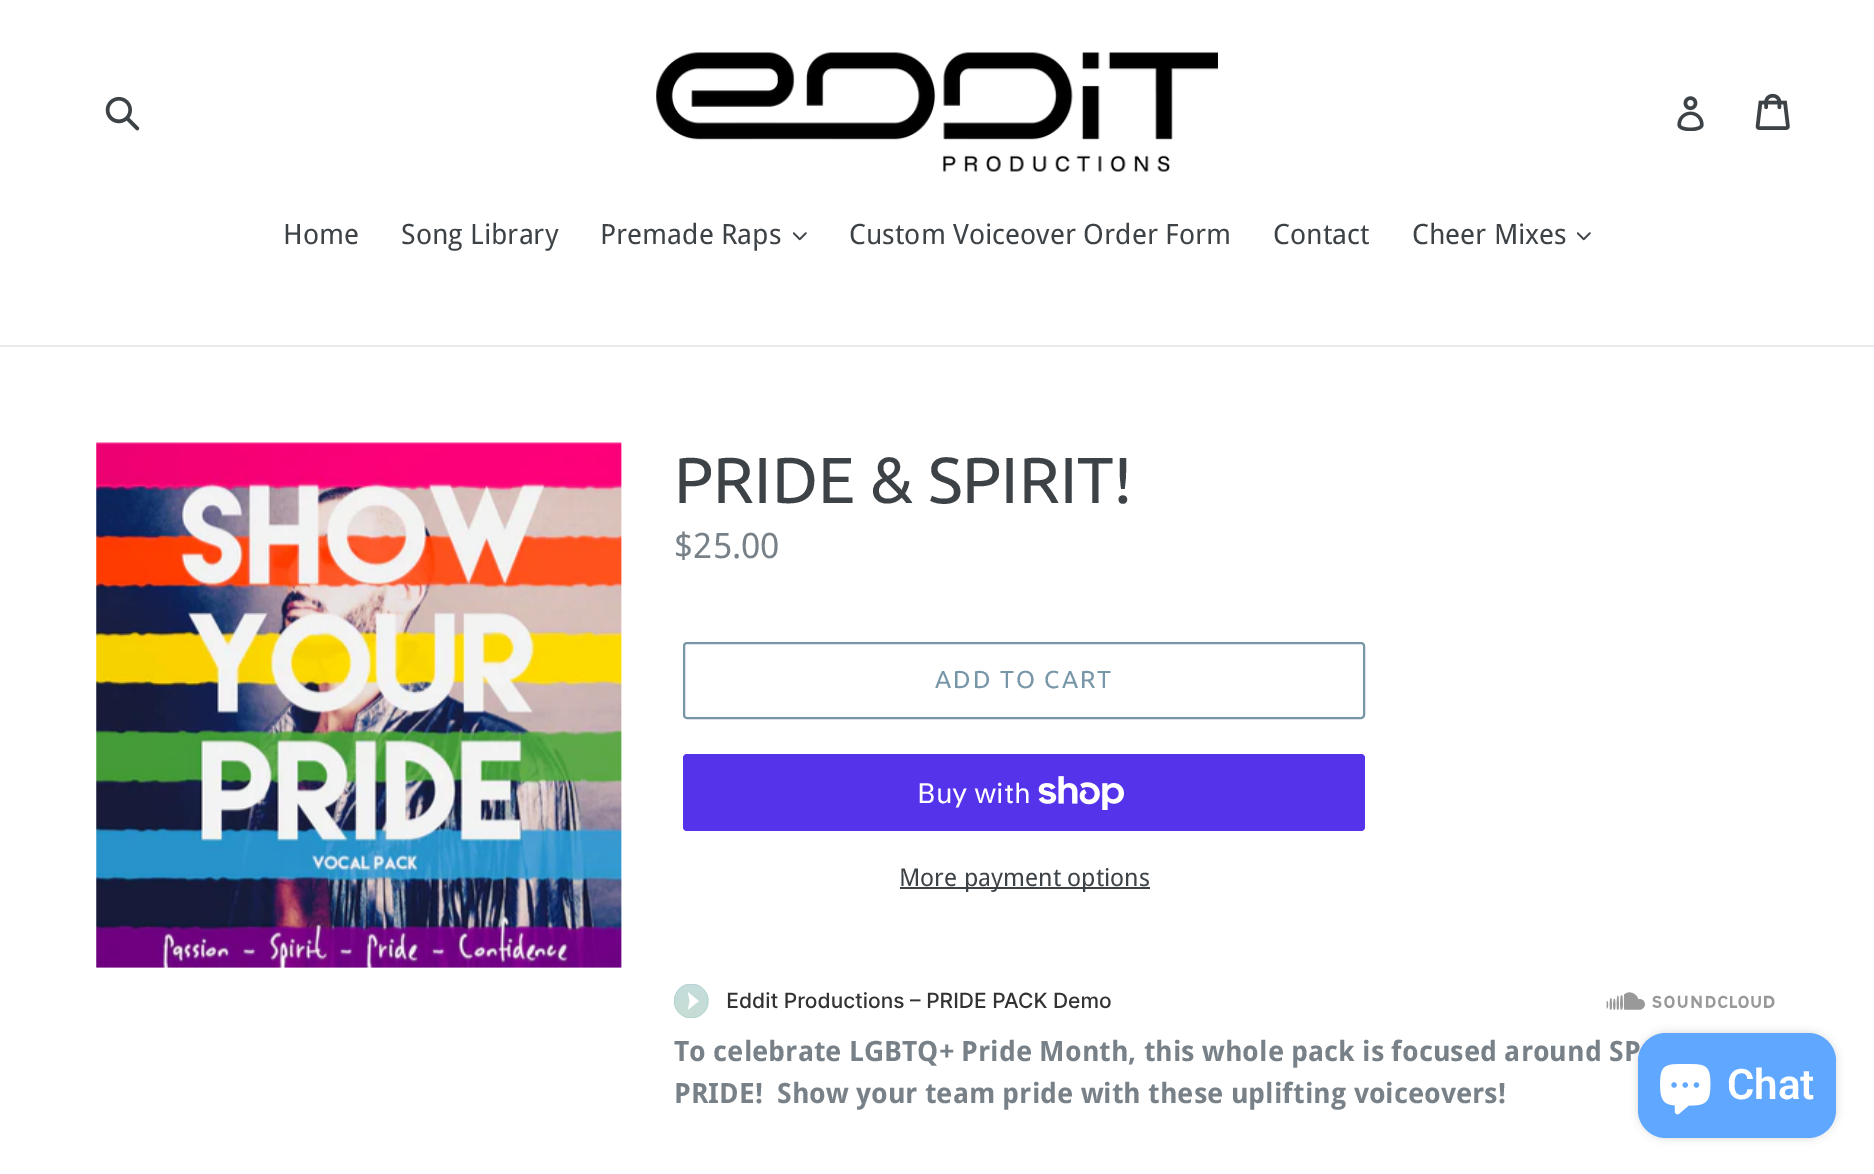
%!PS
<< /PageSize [1874 1174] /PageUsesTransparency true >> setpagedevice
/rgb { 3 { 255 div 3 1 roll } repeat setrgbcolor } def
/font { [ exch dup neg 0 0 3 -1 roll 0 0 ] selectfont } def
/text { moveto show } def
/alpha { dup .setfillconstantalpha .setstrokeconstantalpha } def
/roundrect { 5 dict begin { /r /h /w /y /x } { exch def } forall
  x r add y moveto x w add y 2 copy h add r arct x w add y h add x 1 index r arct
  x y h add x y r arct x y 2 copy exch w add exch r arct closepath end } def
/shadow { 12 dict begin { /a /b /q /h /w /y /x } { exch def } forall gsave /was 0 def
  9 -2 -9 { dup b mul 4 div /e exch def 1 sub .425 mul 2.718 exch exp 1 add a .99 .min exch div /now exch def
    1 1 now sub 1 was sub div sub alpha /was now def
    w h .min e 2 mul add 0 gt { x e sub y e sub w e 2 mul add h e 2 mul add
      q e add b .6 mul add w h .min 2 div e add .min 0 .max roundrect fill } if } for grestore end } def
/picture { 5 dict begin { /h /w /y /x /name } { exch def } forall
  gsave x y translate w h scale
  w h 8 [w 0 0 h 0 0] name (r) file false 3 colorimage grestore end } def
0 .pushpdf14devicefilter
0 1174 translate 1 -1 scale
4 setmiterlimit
255 255 255 rgb
0 0 1874 1174 rectfill
(img_01.rgb) 105 96 35 35 picture
(img_02.rgb) 656 52 562 120 picture
(img_03.rgb) 1677 96 27 35 picture
(img_04.rgb) 1755 93 35 37 picture
232 233 235 rgb
0 345 1874 2 rectfill
(img_05.rgb) 793 232 14 9 picture
(img_05.rgb) 1577 232 14 9 picture
(img_06.rgb) 96 442 526 526 picture
119 150 168 rgb
2 setlinewidth
684 643 680 75 3 roundrect stroke
84 51 235 rgb
683 754 682 77 4 roundrect fill
(img_07.rgb) 1038 776 86 34 picture
61 66 70 rgb
900 887 250 2 rectfill
(img_08.rgb) 674 984 1101 35 picture
0 0 0 rgb
1638 1033 198 105 28 4.5 0.15 shadow
/DroidSans-Regular 28 font
61 66 70 rgb
(Home) 283 244 text
(Song Library) 401 244 text
(Premade Raps) 600 244 text
(Custom Voiceover Order Form) 849 244 text
(Contact) 1273 244 text
(Cheer Mixes) 1412 244 text
/Ubuntu-Regular 64.75 font
(PRIDE & SPIRIT!) 674 503 text
/DroidSans-Regular 35 font
120 129 136 rgb
($25.00) 674 558 text
/Ubuntu-Regular 24.5 font
119 150 168 rgb
935 688 moveto 2 0 (ADD TO CART) ashow
/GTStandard-Regular 28 font
255 255 255 rgb
(Buy with) 917 803 text
/DroidSans-Regular 24.5 font
61 66 70 rgb
(More payment options) 899 886 text
/DroidSans-Bold 28 font
120 129 136 rgb
(To celebrate LGBTQ+ Pride Month, this whole pack is focused around SP) 674 1061 text
(PRIDE!  Show your team pride with these uplifting voiceovers!) 674 1103 text
96 168 255 rgb
1638 1033 198 105 28 roundrect fill
(img_09.rgb) 1660 1064 51 51 picture
/Roboto-SemiBold 42 font
255 255 255 rgb
(Chat) 1727 1099 text
.poppdf14devicefilter showpage
